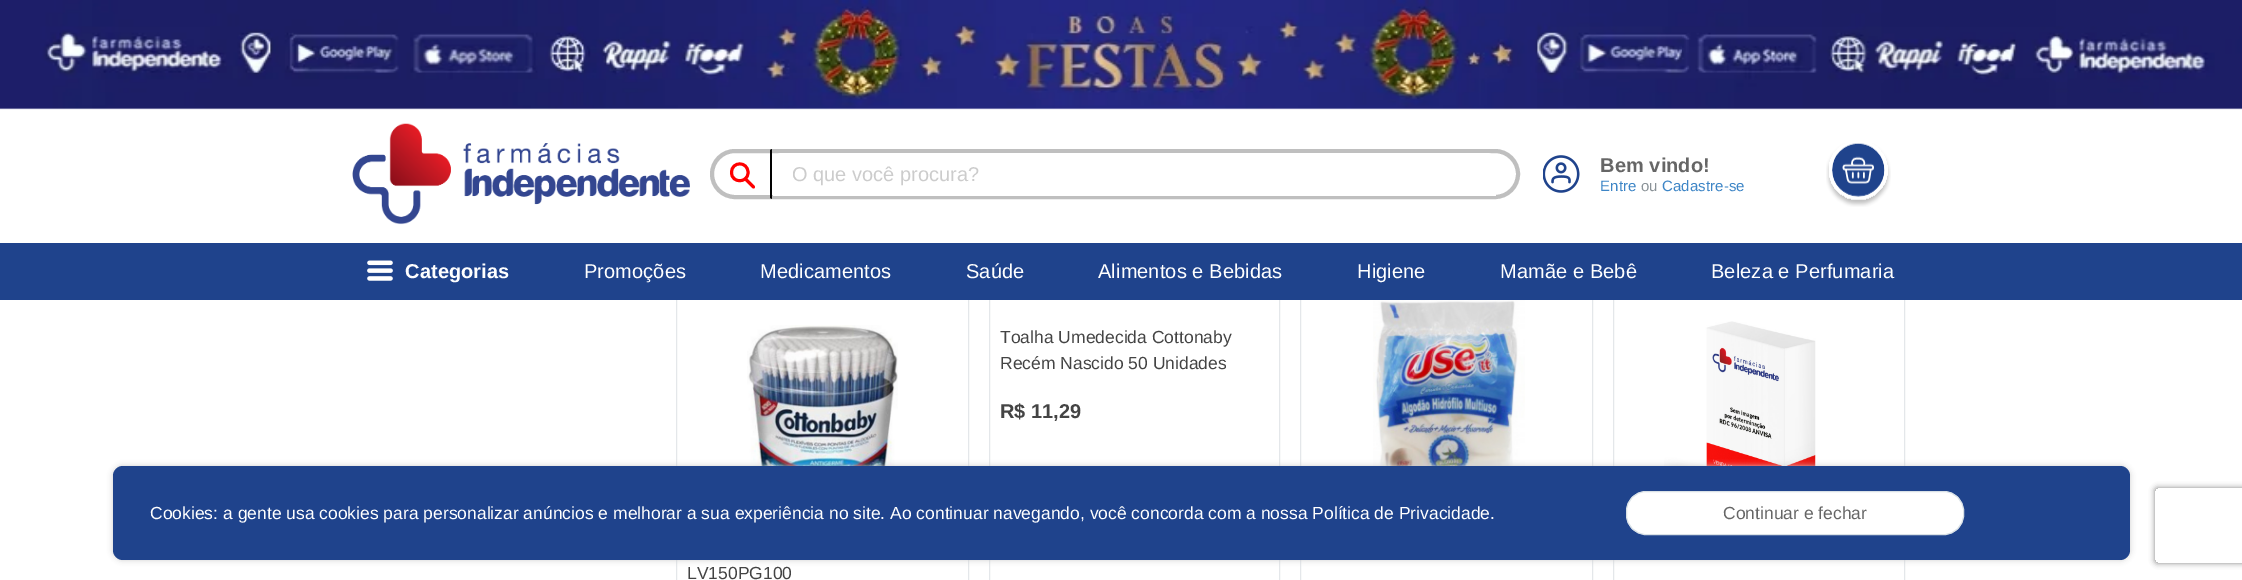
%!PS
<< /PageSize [2242 580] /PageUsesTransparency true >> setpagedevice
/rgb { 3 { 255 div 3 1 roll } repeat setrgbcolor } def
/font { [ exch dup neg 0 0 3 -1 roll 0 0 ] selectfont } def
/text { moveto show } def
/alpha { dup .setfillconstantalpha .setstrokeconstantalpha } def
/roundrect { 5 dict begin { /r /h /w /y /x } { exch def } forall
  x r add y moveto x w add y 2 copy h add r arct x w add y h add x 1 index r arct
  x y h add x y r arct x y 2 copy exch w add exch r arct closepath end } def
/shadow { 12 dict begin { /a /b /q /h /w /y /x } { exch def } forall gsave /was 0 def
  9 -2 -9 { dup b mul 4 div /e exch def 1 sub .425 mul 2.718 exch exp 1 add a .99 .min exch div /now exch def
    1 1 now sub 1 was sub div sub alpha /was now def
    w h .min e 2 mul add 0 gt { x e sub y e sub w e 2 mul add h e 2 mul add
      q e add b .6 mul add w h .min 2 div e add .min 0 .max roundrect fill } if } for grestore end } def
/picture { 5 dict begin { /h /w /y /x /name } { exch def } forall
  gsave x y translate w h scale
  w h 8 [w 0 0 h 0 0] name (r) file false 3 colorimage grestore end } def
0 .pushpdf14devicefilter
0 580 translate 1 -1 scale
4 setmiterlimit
255 255 255 rgb
0 0 2242 580 rectfill
(img_01.rgb) 0 0 2242 110 picture
(img_02.rgb) 352 123 338 102 picture
191 191 191 rgb
4 setlinewidth
712 151 806 46 23 roundrect stroke
2 2 2 rgb
772 149 moveto 0 50 rlineto -2 -1 rlineto 0 -48 rlineto closepath fill
255 0 0 rgb
2.9 setlinewidth
748 172.5 moveto 0 11 -16.5 11 -16.5 0 rcurveto 0 -11.5 16.5 -11.5 16.5 0 rcurveto closepath stroke
1 setlinecap
745.5 179 moveto 8 8 rlineto stroke
255 255 255 rgb
782 153 moveto 705 0 rlineto 5 0 9 4 9 9 rcurveto 0 34 rlineto -723 0 rlineto 0 -34 rlineto 0 -5 4 -9 9 -9 rcurveto closepath fill
(img_03.rgb) 1543 155 37 38 picture
(img_04.rgb) 1826 143 65 64 picture
228 231 234 rgb
1 setlinewidth
0 setlinecap
989.5 285.5 290 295 rectstroke
1300.5 285.5 292 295 rectstroke
1613.5 285.5 291 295 rectstroke
676.5 285.5 292 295 rectstroke
31 67 140 rgb
0 243 2242 57 rectfill
(img_05.rgb) 367 260 26 21 picture
(img_06.rgb) 1373 300 152 166 picture
(img_07.rgb) 1664 321 152 145 picture
(img_08.rgb) 747 325 151 141 picture
gsave
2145 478 moveto 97 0 rlineto 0 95 rlineto -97 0 rlineto closepath 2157.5 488 moveto 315 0 rlineto 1.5 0 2.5 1 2.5 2.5 rcurveto 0 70 rlineto 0 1.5 -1 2.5 -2.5 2.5 rcurveto -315 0 rlineto -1.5 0 -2.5 -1 -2.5 -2.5 rcurveto 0 -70 rlineto 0 -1.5 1 -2.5 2.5 -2.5 rcurveto closepath eoclip newpath
128 128 128 rgb
2155 488 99 75 2.5 3 1 shadow
grestore
204 204 204 rgb
113 466 2017 94 10 3 1 shadow
31 67 140 rgb
113 466 2017 94 10 roundrect fill
255 255 255 rgb
1626.5 491.5 337 43 19.5 roundrect gsave fill grestore
217 225 230 rgb
stroke
/LiberationSans-Regular 20 font
204 204 204 rgb
(O que você procura?) 792 181 text
/LiberationSans-Bold 20 font
102 102 102 rgb
1600 172 moveto 0.1 0 (Bem vindo!) ashow
/LiberationSans-Regular 15 font
61 133 198 rgb
1600 191 moveto 0.1 0 (Entre) ashow
138 146 151 rgb
1641 191 moveto 0.1 0 (ou) ashow
61 133 198 rgb
1662 191 moveto 0.1 0 (Cadastre-se) ashow
/LiberationSans-Bold 20 font
255 255 255 rgb
405 278 moveto 0.1 0 (Categorias) ashow
/LiberationSans-Regular 20 font
584 278 moveto 0.1 0 (Promoções) ashow
760 278 moveto 0.1 0 (Medicamentos) ashow
966 278 moveto 0.1 0 (Saúde) ashow
1098 278 moveto 0.1 0 (Alimentos e Bebidas) ashow
1357 278 moveto 0.1 0 (Higiene) ashow
1500 278 moveto 0.1 0 (Mamãe e Bebê) ashow
1711 278 moveto 0.1 0 (Beleza e Perfumaria) ashow
/LiberationSans-Regular 17.5 font
68 68 68 rgb
(Toalha Umedecida Cottonaby) 1000 343 text
(Recém Nascido 50 Unidades) 1000 369 text
/LiberationSans-Bold 20 font
(R$ 11,29) 1000 418 text
/LiberationSans-Regular 17.5 font
(LV150PG100) 687 579 text
255 255 255 rgb
(Cookies: a gente usa cookies para personalizar anúncios e melhorar a sua experiência no site. Ao continuar navegando, você concorda com a nossa Política de Privacidade.) 150 519 text
102 102 102 rgb
(Continuar e fechar) 1723 519 text
.poppdf14devicefilter showpage
